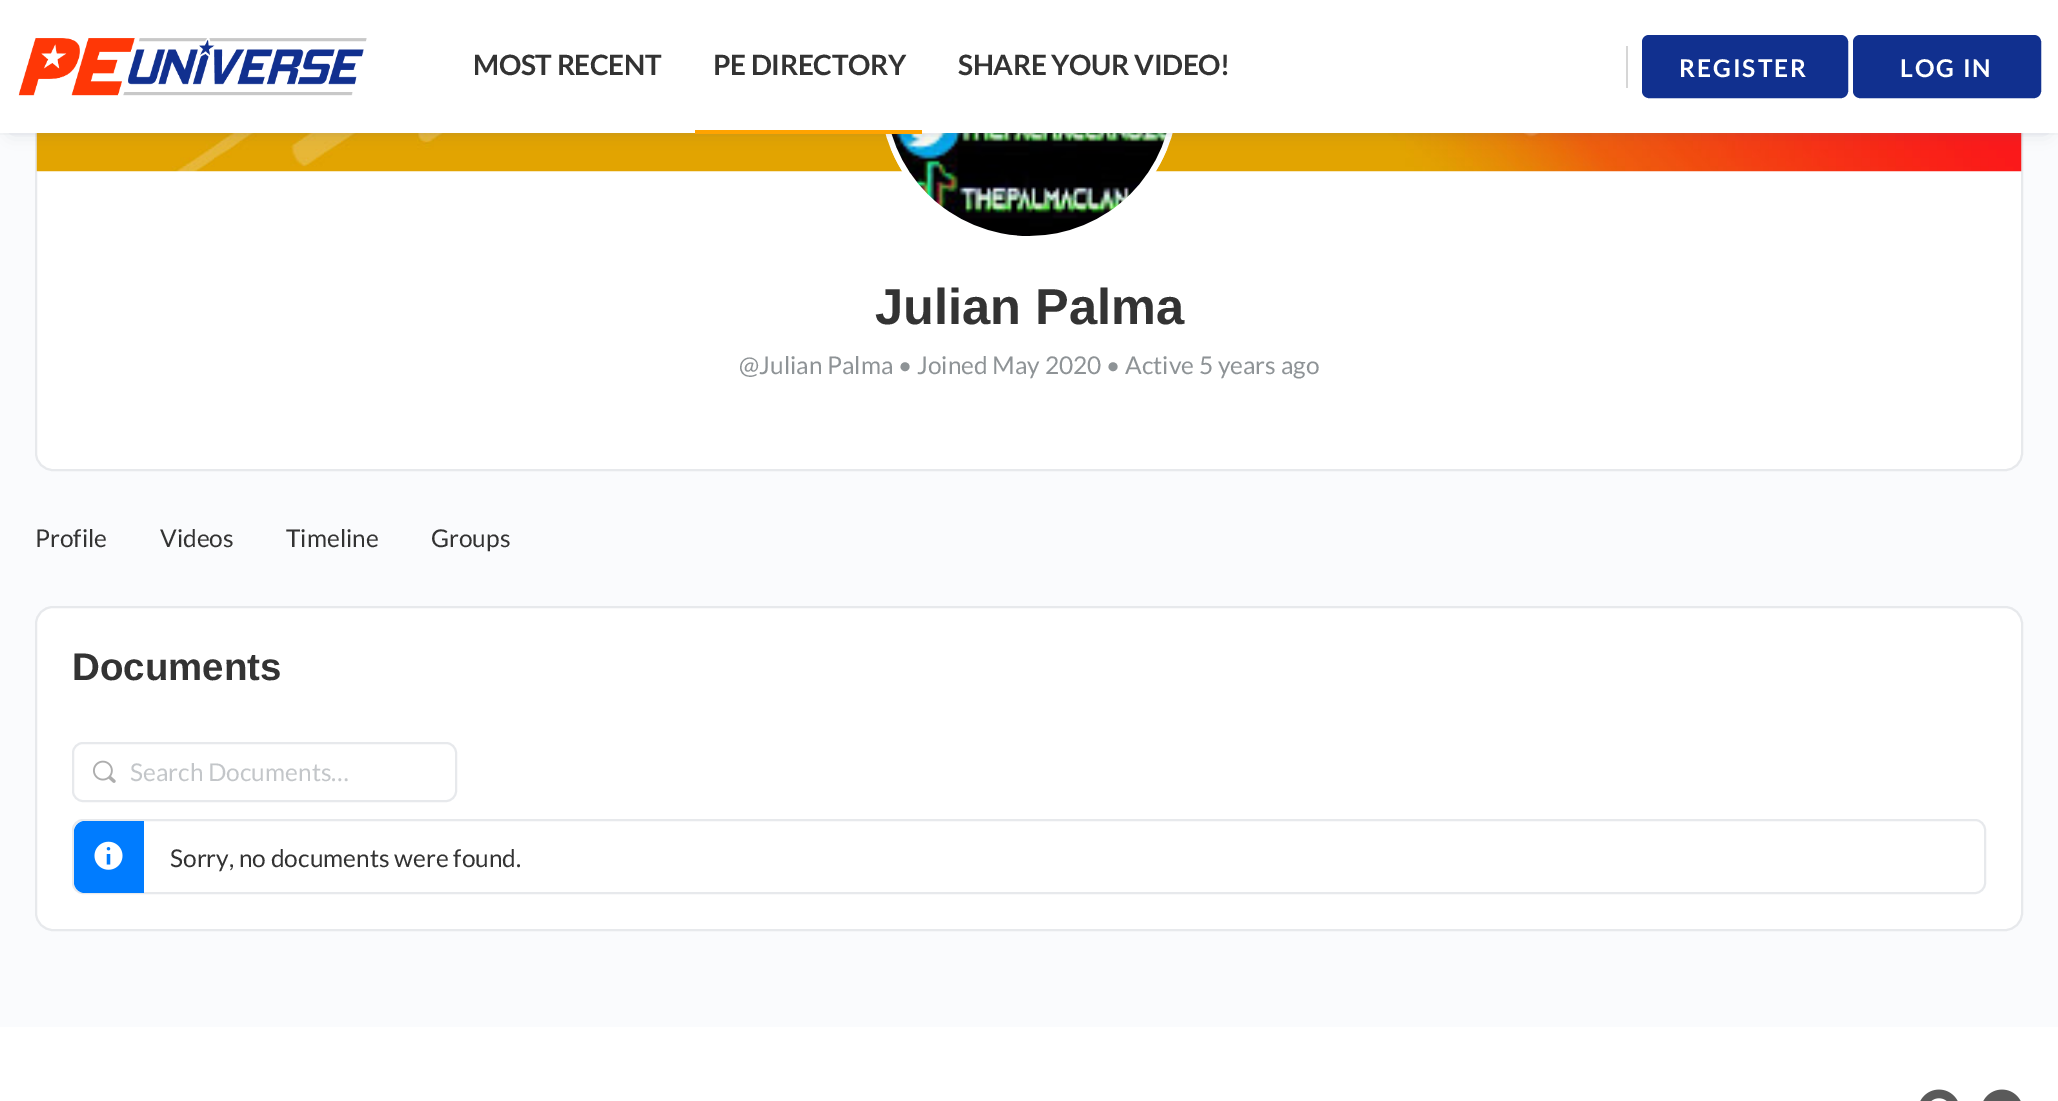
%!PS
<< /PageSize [2058 1101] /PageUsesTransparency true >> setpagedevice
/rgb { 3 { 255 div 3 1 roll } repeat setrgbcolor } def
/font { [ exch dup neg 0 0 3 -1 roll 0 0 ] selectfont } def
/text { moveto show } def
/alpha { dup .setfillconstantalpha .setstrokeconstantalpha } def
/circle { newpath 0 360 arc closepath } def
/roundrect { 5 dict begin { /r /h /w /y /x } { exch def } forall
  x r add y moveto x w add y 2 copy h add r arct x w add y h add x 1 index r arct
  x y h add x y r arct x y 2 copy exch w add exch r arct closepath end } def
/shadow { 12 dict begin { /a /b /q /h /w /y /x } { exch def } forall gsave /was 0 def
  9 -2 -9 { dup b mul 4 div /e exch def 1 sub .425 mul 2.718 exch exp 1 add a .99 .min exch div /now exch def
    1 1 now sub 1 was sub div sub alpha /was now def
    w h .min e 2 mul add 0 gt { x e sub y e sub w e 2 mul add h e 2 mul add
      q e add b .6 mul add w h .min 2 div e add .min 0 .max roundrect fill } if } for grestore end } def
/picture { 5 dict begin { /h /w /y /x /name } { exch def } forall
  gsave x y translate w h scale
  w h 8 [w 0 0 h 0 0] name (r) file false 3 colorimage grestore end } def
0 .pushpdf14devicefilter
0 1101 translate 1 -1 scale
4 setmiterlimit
250 251 253 rgb
0 0 2058 1101 rectfill
255 255 255 rgb
36 -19 moveto 1986 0 rlineto 0 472 rlineto 0 9.5 -7.5 17 -17 17 rcurveto -1952 0 rlineto -9.5 0 -17 -7.5 -17 -17 rcurveto closepath gsave fill grestore
231 233 236 rgb
2 setlinewidth
stroke
(img_02.rgb) 36 133 1986 39 picture
255 255 255 rgb
1029 93 146.5 circle gsave fill grestore
5 setlinewidth
stroke
(img_03.rgb) 891 133 276 103 picture
65 71 108 rgb
12 21 2034 109 0 9 0.25 shadow
0.05 alpha
139 141 157 rgb
0 133 2058 2 rectfill
1 alpha
255 255 255 rgb
0 0 2058 133 rectfill
(img_01.rgb) 18 38 349 58 picture
255 163 0 rgb
695 130 227 4 rectfill
214 214 214 rgb
1626 46 2 42 rectfill
17 48 143 rgb
1644 37 202 59 5 roundrect gsave fill grestore
4 setlinewidth
stroke
1855 37 184 59 5 roundrect gsave fill grestore
stroke
255 255 255 rgb
36 607 1986 323 17 roundrect gsave fill grestore
231 233 236 rgb
2 setlinewidth
stroke
73 743 383 58 10 roundrect stroke
(img_04.rgb) 93 760 23 23 picture
73 820 1912 73 10 roundrect stroke
0 124 255 rgb
85 821 moveto 59 0 rlineto 0 72 rlineto -59 0 rlineto -6 0 -11 -5 -11 -11 rcurveto 0 -50 rlineto 0 -6 5 -11 11 -11 rcurveto closepath fill
(img_05.rgb) 94 841 29 29 picture
255 255 255 rgb
0 1027 2058 74 rectfill
(img_06.rgb) 1920 1089 38 12 picture
(img_07.rgb) 1983 1089 38 12 picture
/Lato-Bold 28 font
51 51 51 rgb
473 75 moveto -0.4 0 (MOST RECENT) ashow
713 75 moveto -0.4 0 (PE DIRECTORY) ashow
958 75 moveto -0.4 0 (SHARE YOUR VIDEO!) ashow
/Lato-Bold 24.5 font
255 255 255 rgb
1679 77 moveto 2 0 (REGISTER) ashow
1900 77 moveto 2 0 (LOG IN) ashow
/Arimo-Bold 50.5 font
51 51 51 rgb
(Julian Palma) 875 324 text
/Lato-Regular 24.5 font
142 147 150 rgb
(@Julian Palma • Joined May 2020 • Active 5 years ago) 739 374 text
51 51 51 rgb
(Profile) 35 547 text
(Videos) 160 547 text
(Timeline) 286 547 text
(Groups) 431 547 text
/Arimo-Bold 38.5 font
(Documents) 72 680 text
/Lato-Regular 24.5 font
195 198 201 rgb
(Search Documents…) 130 781 text
51 51 51 rgb
(Sorry, no documents were found.) 170 867 text
.poppdf14devicefilter showpage
